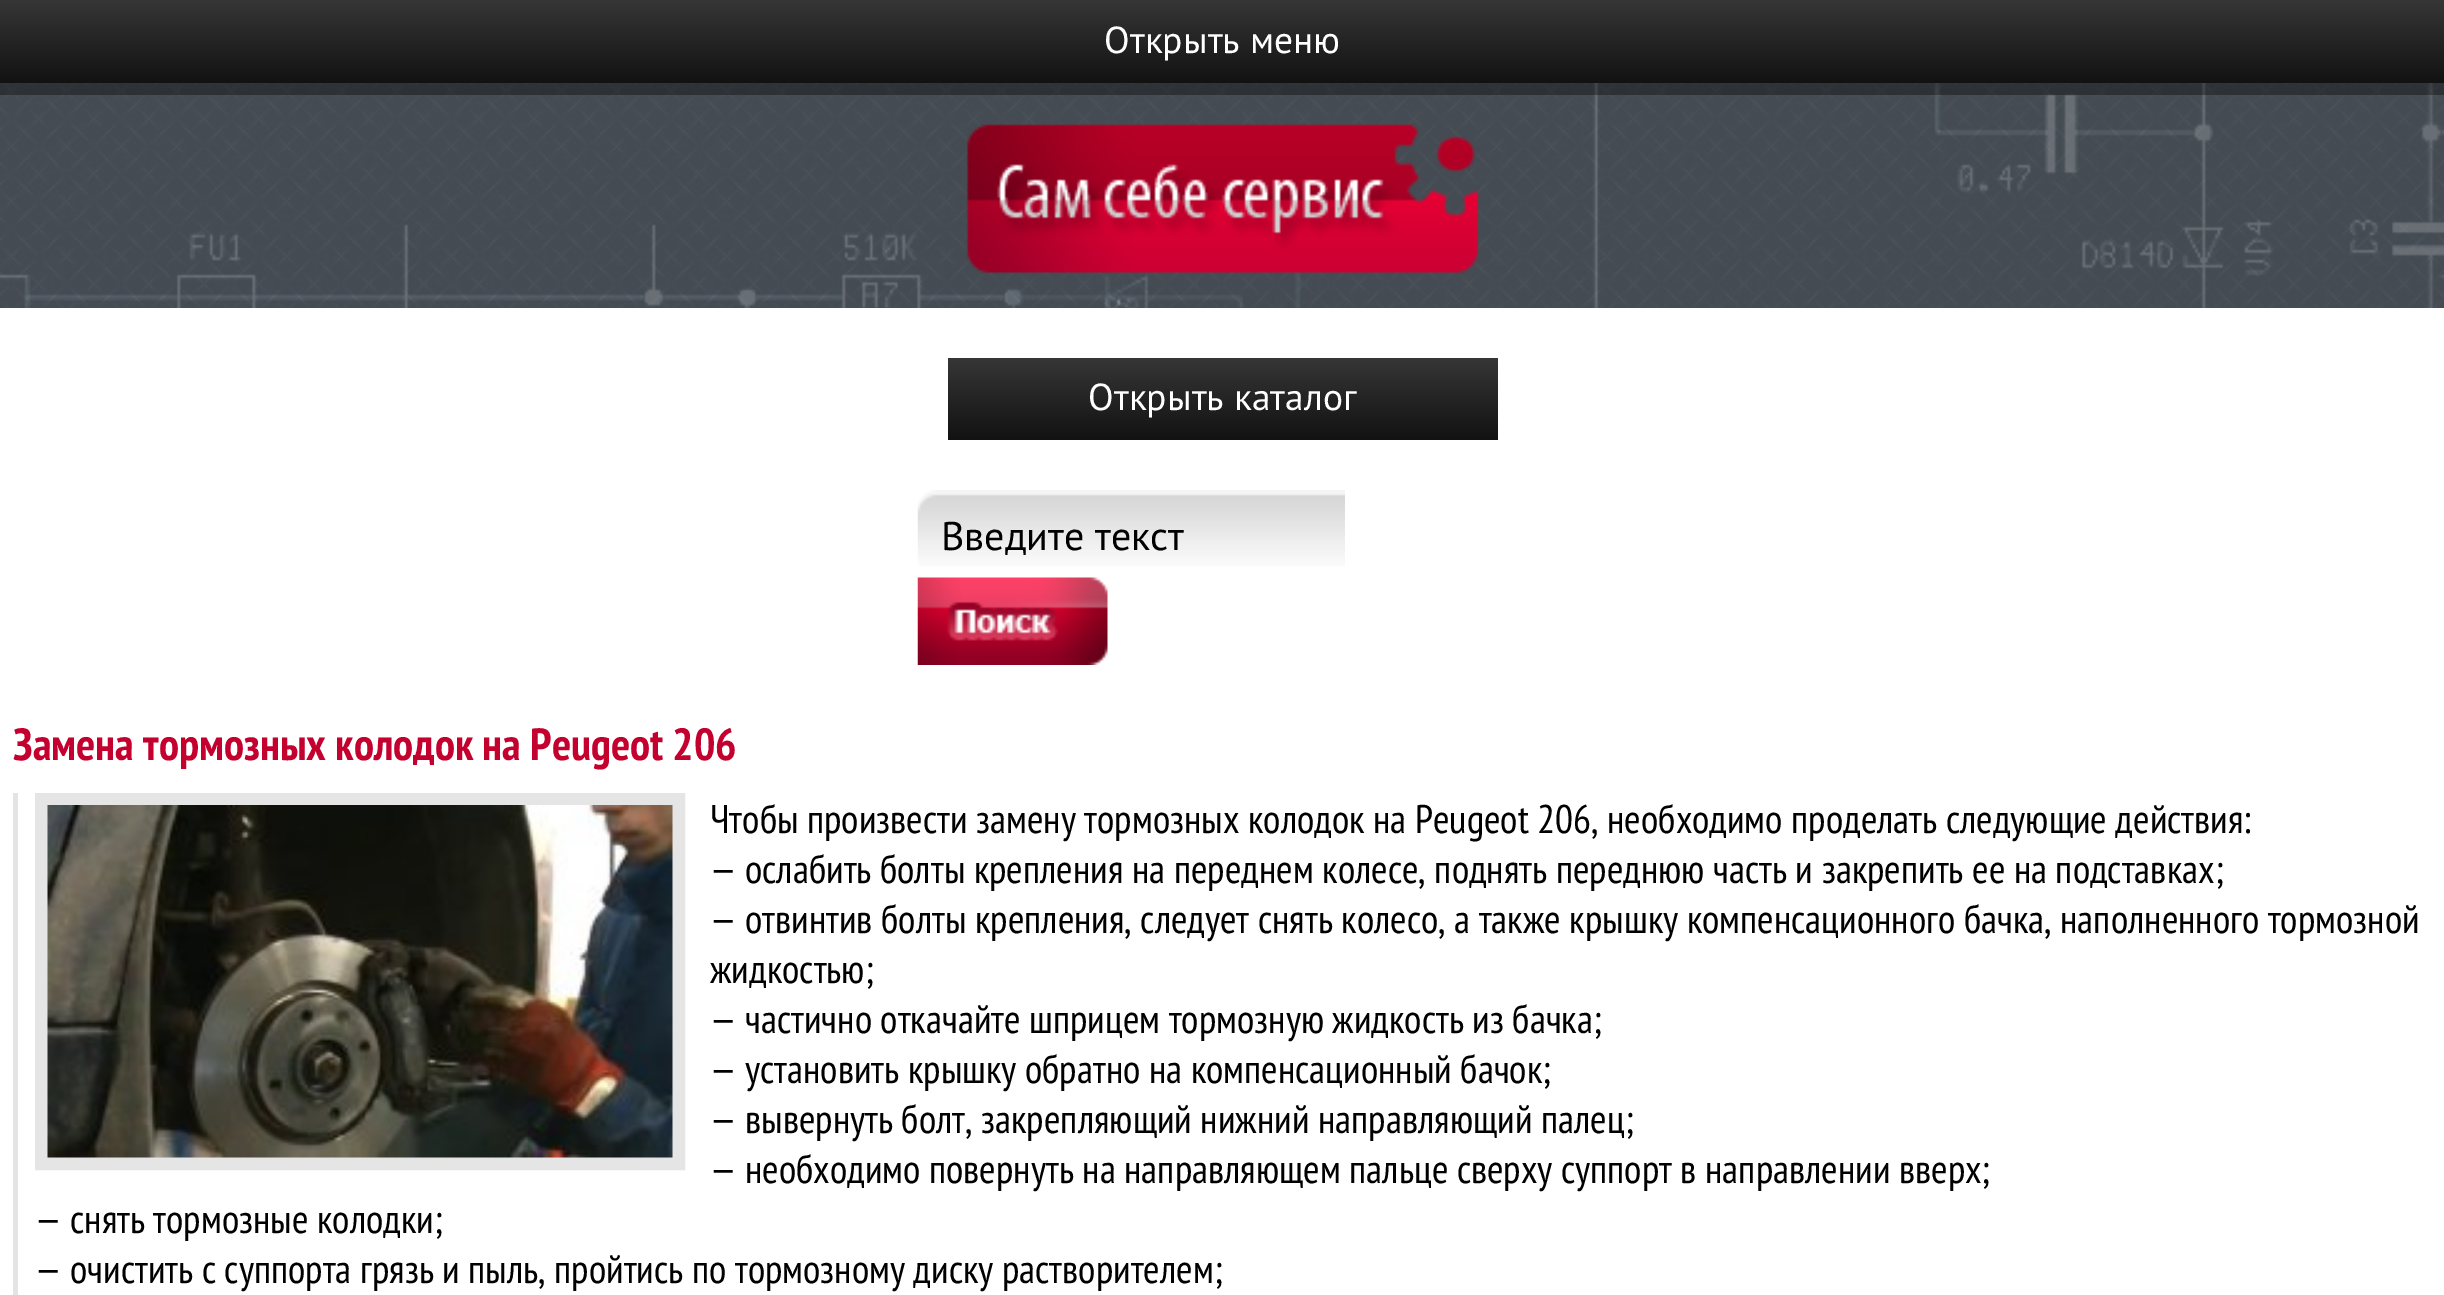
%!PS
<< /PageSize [2444 1295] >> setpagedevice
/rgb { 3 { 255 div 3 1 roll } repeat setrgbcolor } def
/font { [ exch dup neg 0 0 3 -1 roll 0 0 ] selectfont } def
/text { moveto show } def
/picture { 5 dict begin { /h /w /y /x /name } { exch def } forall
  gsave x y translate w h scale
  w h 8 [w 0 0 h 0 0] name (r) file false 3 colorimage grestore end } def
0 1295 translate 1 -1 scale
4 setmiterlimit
255 255 255 rgb
0 0 2444 1295 rectfill
(img_01.rgb) 0 83 2444 225 picture
(img_02.rgb) 0 83 2444 12 picture
gsave 0 0 moveto 2444 0 rlineto 0 83 rlineto -2444 0 rlineto closepath clip newpath
<< /ShadingType 2 /ColorSpace /DeviceRGB /Coords [1223 0 1223 83] /Extend [true true] /Function << /FunctionType 2 /Domain [0 1] /C0 [0.212 0.212 0.212] /C1 [0.071 0.071 0.071] /N 1 >> >> shfill grestore
(img_03.rgb) 966 124 513 150 picture
gsave 948 358 moveto 550 0 rlineto 0 82 rlineto -550 0 rlineto closepath clip newpath
<< /ShadingType 2 /ColorSpace /DeviceRGB /Coords [1223 358 1223 440] /Extend [true true] /Function << /FunctionType 2 /Domain [0 1] /C0 [0.212 0.212 0.212] /C1 [0.071 0.071 0.071] /N 1 >> >> shfill grestore
(img_04.rgb) 917 490 428 76 picture
(img_05.rgb) 917 577 191 88 picture
228 228 228 rgb
13 793 5 502 rectfill
229 229 229 rgb
13 setlinewidth
41.5 799.5 637 364 rectstroke
(img_06.rgb) 47 805 626 353 picture
/PTSans-Regular 37.5 font
255 255 255 rgb
(Открыть меню) 1104 53 text
(Открыть каталог) 1088 410 text
/PTSans-Regular 40 font
0 0 0 rgb
(Введите текст) 941 550 text
/PTSansNarrow-Bold 45 font
195 0 46 rgb
(Замена тормозных колодок на Peugeot 206) 13 760 text
/PTSansNarrow-Regular 40 font
0 0 0 rgb
(Чтобы произвести замену тормозных колодок на Peugeot 206, необходимо проделать следующие действия:) 710 833 text
(— ослабить болты крепления на переднем колесе, поднять переднюю часть и закрепить ее на подставках;) 710 883 text
(— отвинтив болты крепления, следует снять колесо, а также крышку компенсационного бачка, наполненного тормозной) 710 933 text
(жидкостью;) 710 983 text
(— частично откачайте шприцем тормозную жидкость из бачка;) 710 1033 text
(— установить крышку обратно на компенсационный бачок;) 710 1083 text
(— вывернуть болт, закрепляющий нижний направляющий палец;) 710 1133 text
(— необходимо повернуть на направляющем пальце сверху суппорт в направлении вверх;) 710 1183 text
(— снять тормозные колодки;) 35 1233 text
(— очистить с суппорта грязь и пыль, пройтись по тормозному диску растворителем;) 35 1283 text
showpage
